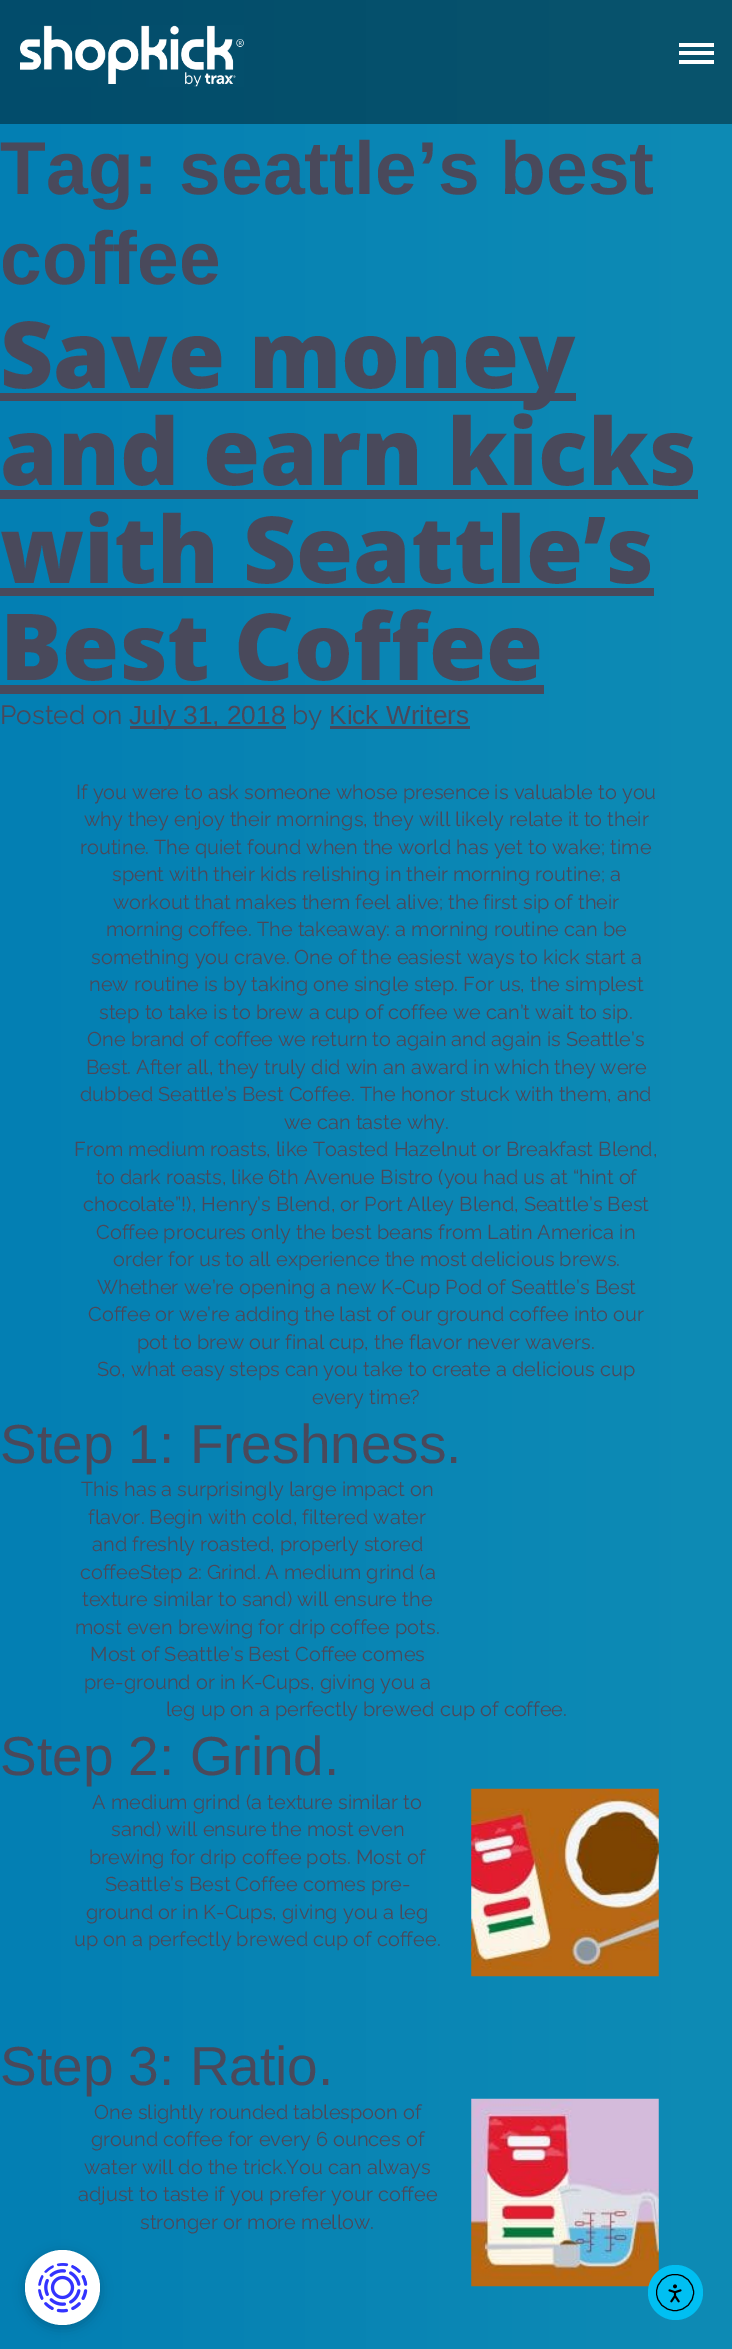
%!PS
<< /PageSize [732 2349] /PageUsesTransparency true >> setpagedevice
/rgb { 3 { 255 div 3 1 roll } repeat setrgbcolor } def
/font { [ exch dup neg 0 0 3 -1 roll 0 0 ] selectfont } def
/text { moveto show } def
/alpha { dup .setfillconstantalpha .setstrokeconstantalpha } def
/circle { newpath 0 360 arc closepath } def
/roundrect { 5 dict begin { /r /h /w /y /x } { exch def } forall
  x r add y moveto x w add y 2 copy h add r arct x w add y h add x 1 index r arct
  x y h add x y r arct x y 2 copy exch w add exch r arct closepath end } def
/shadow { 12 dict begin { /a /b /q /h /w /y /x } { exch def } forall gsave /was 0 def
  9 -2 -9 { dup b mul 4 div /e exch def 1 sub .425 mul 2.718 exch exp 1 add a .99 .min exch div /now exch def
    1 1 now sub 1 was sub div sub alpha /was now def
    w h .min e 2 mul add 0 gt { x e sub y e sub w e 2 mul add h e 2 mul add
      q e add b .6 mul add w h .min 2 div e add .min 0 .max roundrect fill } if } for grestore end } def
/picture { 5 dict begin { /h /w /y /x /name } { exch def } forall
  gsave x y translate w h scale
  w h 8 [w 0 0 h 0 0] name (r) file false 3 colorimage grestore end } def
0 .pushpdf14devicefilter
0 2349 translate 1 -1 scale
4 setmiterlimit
255 255 255 rgb
0 0 732 2349 rectfill
gsave 0 124 moveto 732 0 rlineto 0 2225 rlineto -732 0 rlineto closepath clip newpath
<< /ShadingType 2 /ColorSpace /DeviceRGB /Coords [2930 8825 0 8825] /Extend [true true] /Function << /FunctionType 2 /Domain [0 1] /C0 [0.188 0.69 0.741] /C1 [0.012 0.498 0.702] /N 1 >> >> shfill grestore
gsave 0 0 moveto 732 0 rlineto 0 124 rlineto -732 0 rlineto closepath clip newpath
<< /ShadingType 2 /ColorSpace /DeviceRGB /Coords [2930 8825 0 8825] /Extend [true true] /Function << /FunctionType 2 /Domain [0 1] /C0 [0.114 0.416 0.443] /C1 [0.008 0.298 0.42] /N 1 >> >> shfill grestore
(img_01.rgb) 20 25 224 62 picture
679 43 35 4 rectfill
679 51 35 4 rectfill
679 60 35 4 rectfill
73 73 91 rgb
0 393 576 8 rectfill
0 490 698 9 rectfill
0 588 654 8 rectfill
0 685 544 9 rectfill
130 726 156 3 rectfill
330 726 140 3 rectfill
(img_02.rgb) 471 1788 188 189 picture
(img_03.rgb) 471 2098 188 189 picture
0 0 0 rgb
25 2253 75 75 37.5 6 0.2 shadow
255 255 255 rgb
62.5 2287.5 37.5 circle fill
(img_04.rgb) 38 2263 50 50 picture
0 191 242 rgb
675.5 2292.5 27.5 circle fill
0 0 0 rgb
656.5 2274.5 37 36 18 roundrect stroke
(img_05.rgb) 668 2284 14 19 picture
/LiberationSans-Bold 75 font
73 73 91 rgb
(Tag: seattle’s best) 0 194 text
(coffee) 0 284 text
/OpenSans-ExtraBold 92.5 font
(Save money) 0 388 text
(and earn kicks) 0 485 text
(with Seattle’s) 0 583 text
(Best Coffee) 0 680 text
/Raleway-Regular 26.25 font
(Posted on) 0 724 text
/LiberationSans-Regular 26.25 font
(July 31, 2018) 129 724 text
/Raleway-Regular 26.25 font
(by) 292 724 text
/LiberationSans-Regular 26.25 font
(Kick Writers) 329 724 text
/Raleway-Regular 20 font
(If you were to ask someone whose presence is valuable to you) 76 799 text
(why they enjoy their mornings, they will likely relate it to their) 84 826 text
(routine. The quiet found when the world has yet to wake; time) 80 854 text
(spent with their kids relishing in their morning routine; a) 112 881 text
(workout that makes them feel alive; the first sip of their) 113 909 text
(morning coffee. The takeaway: a morning routine can be) 106 936 text
(something you crave. One of the easiest ways to kick start a) 91 964 text
(new routine is by taking one single step. For us, the simplest) 89 991 text
(step to take is to brew a cup of coffee we can’t wait to sip.) 99 1019 text
(One brand of coffee we return to again and again is Seattle’s) 87 1046 text
(Best. After all, they truly did win an award in which they were) 86 1074 text
(dubbed Seattle’s Best Coffee. The honor stuck with them, and) 80 1101 text
(we can taste why.) 284 1129 text
(From medium roasts, like Toasted Hazelnut or Breakfast Blend,) 74 1156 text
(to dark roasts, like 6th Avenue Bistro \(you had us at “hint of) 96 1184 text
(chocolate”!\), Henry’s Blend, or Port Alley Blend, Seattle’s Best) 83 1211 text
(Coffee procures only the best beans from Latin America in) 96 1239 text
(order for us to all experience the most delicious brews.) 113 1266 text
(Whether we’re opening a new K-Cup Pod of Seattle’s Best) 97 1294 text
(Coffee or we’re adding the last of our ground coffee into our) 88 1321 text
(pot to brew our final cup, the flavor never wavers.) 137 1349 text
(So, what easy steps can you take to create a delicious cup) 97 1376 text
(every time?) 312 1404 text
/LiberationSans-Regular 55 font
(Step 1: Freshness.) 0 1463 text
/Raleway-Regular 20 font
(This has a surprisingly large impact on) 81 1496 text
(flavor. Begin with cold, filtered water) 88 1524 text
(and freshly roasted, properly stored) 92 1551 text
(coffeeStep 2: Grind. A medium grind \(a) 80 1579 text
(texture similar to sand\) will ensure the) 82 1606 text
(most even brewing for drip coffee pots.) 75 1634 text
(Most of Seattle’s Best Coffee comes) 90 1661 text
(pre-ground or in K-Cups, giving you a) 84 1689 text
(leg up on a perfectly brewed cup of coffee.) 166 1716 text
/LiberationSans-Regular 55 font
(Step 2: Grind.) 0 1775 text
/Raleway-Regular 20 font
(A medium grind \(a texture similar to) 92 1809 text
(sand\) will ensure the most even) 111 1836 text
(brewing for drip coffee pots. Most of) 89 1864 text
(Seattle’s Best Coffee comes pre-) 105 1891 text
(ground or in K-Cups, giving you a leg) 86 1919 text
(up on a perfectly brewed cup of coffee.) 74 1946 text
/LiberationSans-Regular 55 font
(Step 3: Ratio.) 0 2085 text
/Raleway-Regular 20 font
(One slightly rounded tablespoon of) 94 2119 text
(ground coffee for every 6 ounces of) 91 2146 text
(water will do the trick.You can always) 84 2174 text
(adjust to taste if you prefer your coffee) 78 2201 text
(stronger or more mellow.) 140 2229 text
.poppdf14devicefilter showpage
